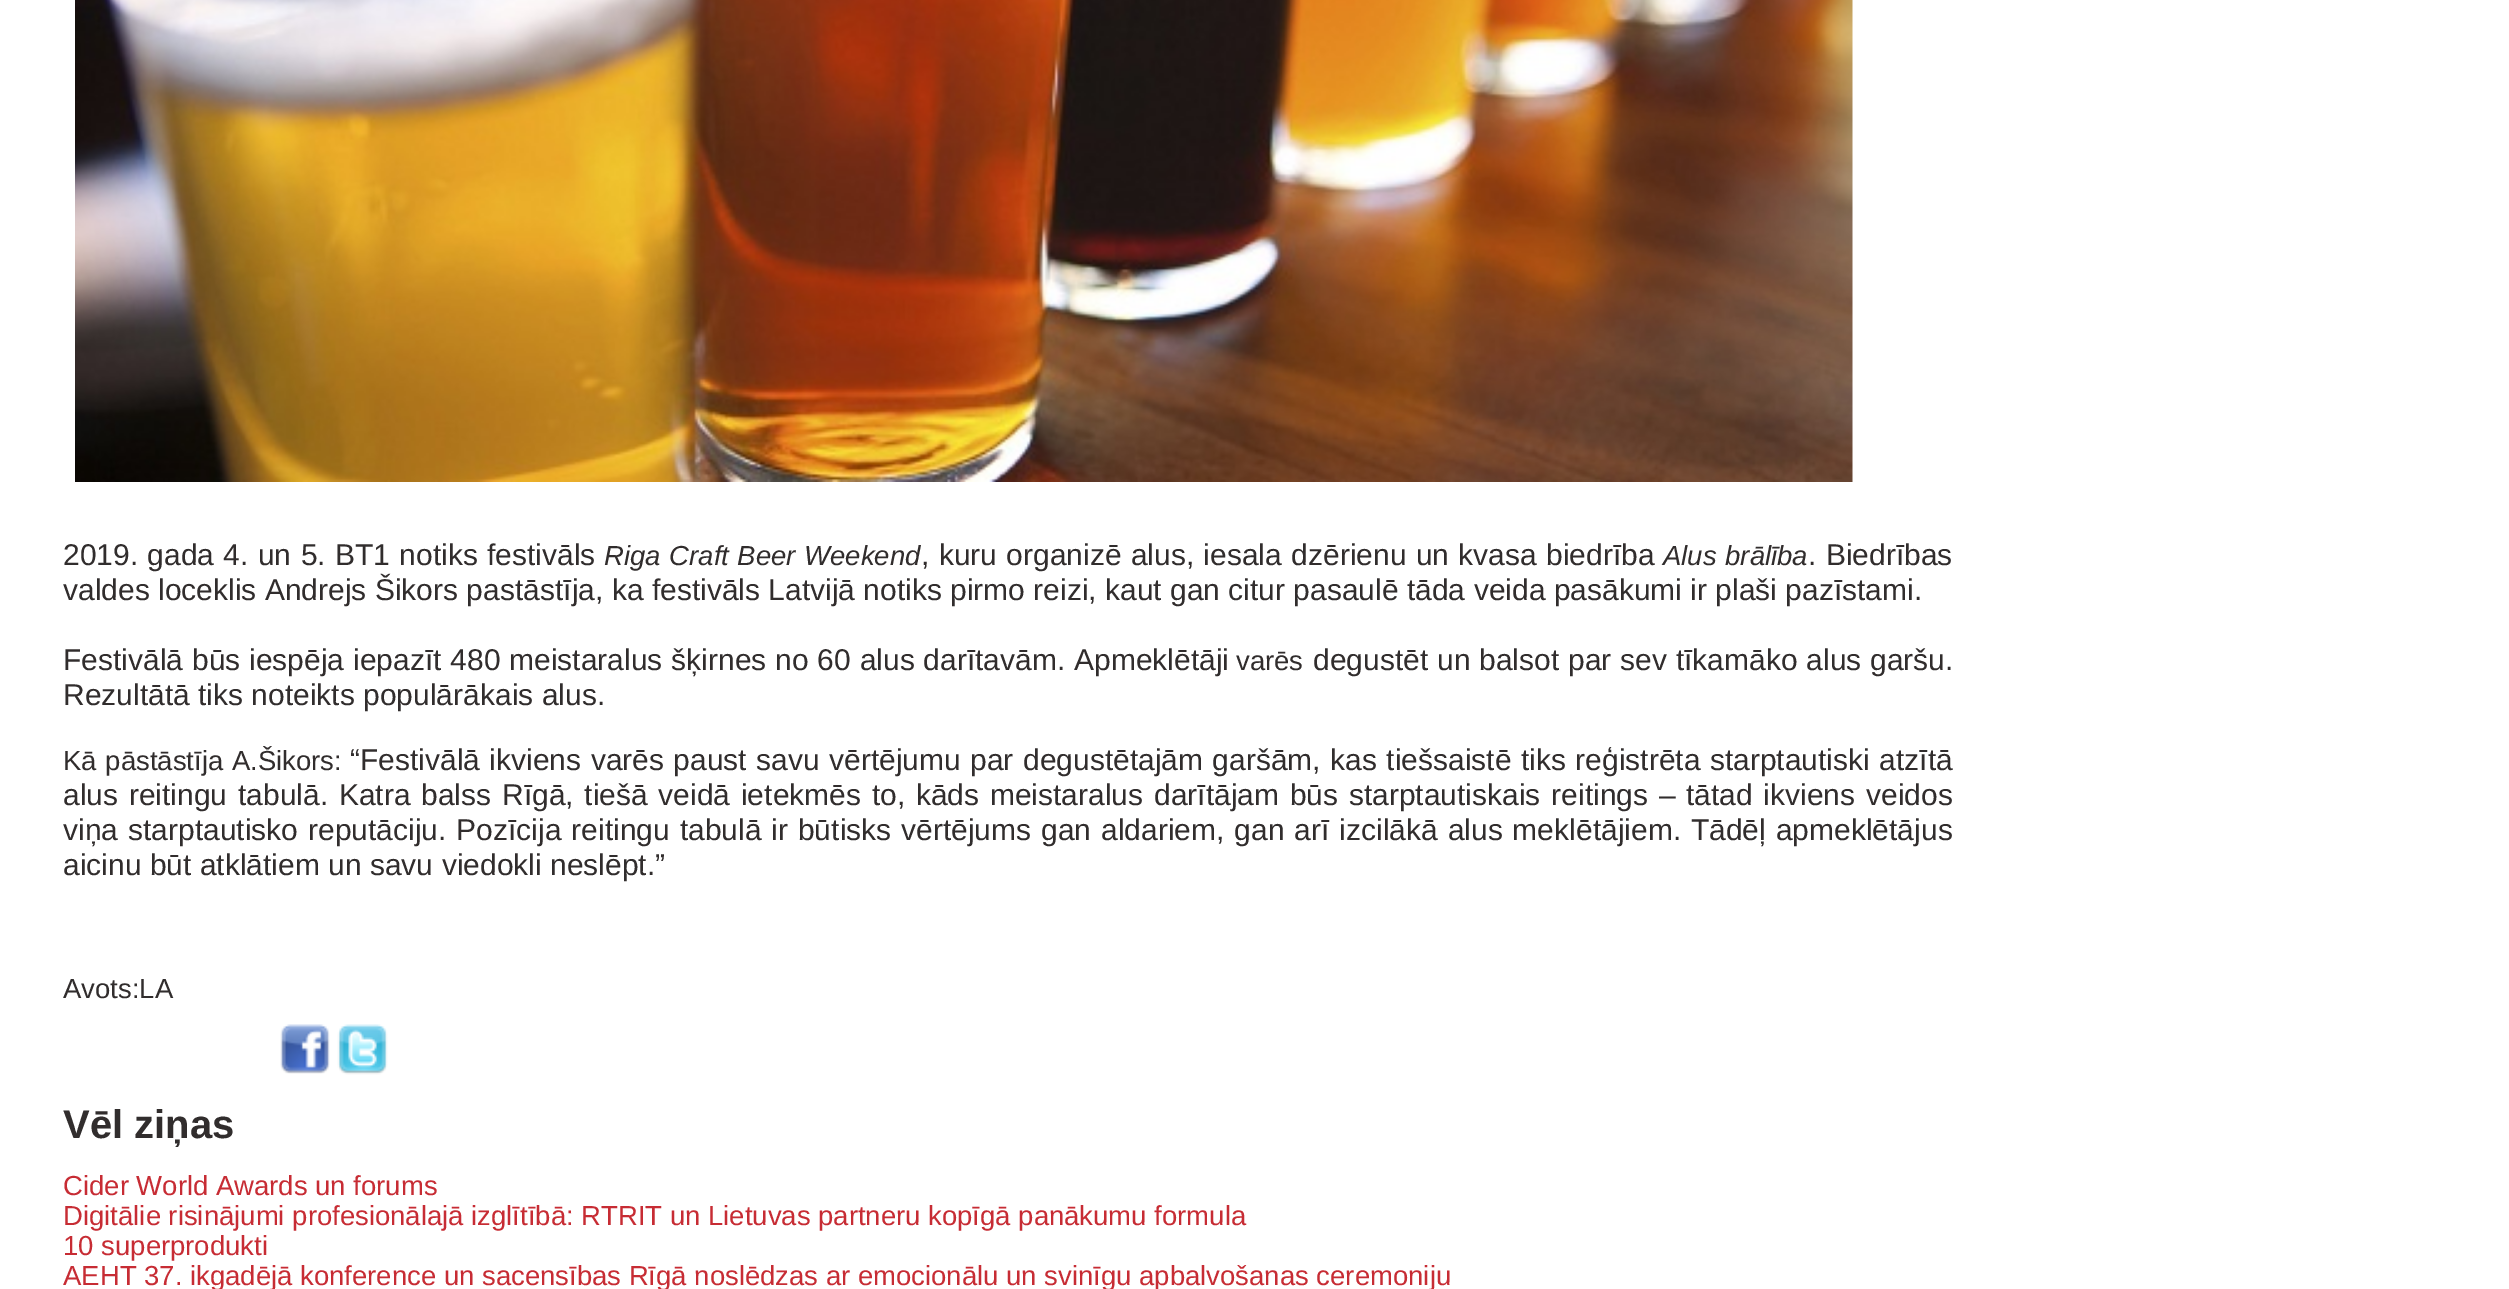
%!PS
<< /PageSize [2509 1289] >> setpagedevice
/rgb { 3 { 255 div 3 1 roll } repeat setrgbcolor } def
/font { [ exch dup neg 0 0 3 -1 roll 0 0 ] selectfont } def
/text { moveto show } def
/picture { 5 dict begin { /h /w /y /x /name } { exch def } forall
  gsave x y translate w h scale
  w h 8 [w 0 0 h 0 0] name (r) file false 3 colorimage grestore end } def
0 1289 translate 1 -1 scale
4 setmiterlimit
255 255 255 rgb
0 0 2509 1289 rectfill
(img_01.rgb) 75 0 1778 482 picture
(img_02.rgb) 280 1024 50 50 picture
(img_03.rgb) 337 1024 51 51 picture
/LiberationSans-Regular 30 font
49 45 45 rgb
63 565 moveto 1 0 32 (2019. gada 4. un 5. BT1 notiks festivāls) widthshow
/LiberationSans-Italic 27.5 font
604 565 moveto 1 0 32 (Riga Craft Beer Weekend) widthshow
/LiberationSans-Regular 30 font
921 565 moveto 1 0 32 (, kuru organizē alus, iesala dzērienu un kvasa biedrība) widthshow
/LiberationSans-Italic 27.5 font
1663 565 moveto 1 0 32 (Alus brālība) widthshow
/LiberationSans-Regular 30 font
1808 565 moveto 1 0 32 (. Biedrības) widthshow
(valdes loceklis Andrejs Šikors pastāstīja, ka festivāls Latvijā notiks pirmo reizi, kaut gan citur pasaulē tāda veida pasākumi ir plaši pazīstami.) 63 600 text
63 670 moveto 0.5 0 32 (Festivālā būs iespēja iepazīt 480 meistaralus šķirnes no 60 alus darītavām. Apmeklētāji) widthshow
/LiberationSans-Regular 27.5 font
(varēs) 1236 670 text
/LiberationSans-Regular 30 font
1313 670 moveto 0.5 0 32 (degustēt un balsot par sev tīkamāko alus garšu.) widthshow
(Rezultātā tiks noteikts populārākais alus.) 63 705 text
/LiberationSans-Regular 27.5 font
63 770 moveto 1.1 0 32 (Kā pāstāstīja A.Šikors:) widthshow
/LiberationSans-Regular 30 font
350 770 moveto 1.1 0 32 (“Festivālā ikviens varēs paust savu vērtējumu par degustētajām garšām, kas tiešsaistē tiks reģistrēta starptautiski atzītā) widthshow
63 805 moveto 2.4 0 32 (alus reitingu tabulā. Katra balss Rīgā, tiešā veidā ietekmēs to, kāds meistaralus darītājam būs starptautiskais reitings – tātad ikviens veidos) widthshow
63 840 moveto 1.6 0 32 (viņa starptautisko reputāciju. Pozīcija reitingu tabulā ir būtisks vērtējums gan aldariem, gan arī izcilākā alus meklētājiem. Tādēļ apmeklētājus) widthshow
(aicinu būt atklātiem un savu viedokli neslēpt.”) 63 875 text
/LiberationSans-Regular 27.5 font
(Avots:LA) 63 998 text
/LiberationSans-Bold 40 font
(Vēl ziņas) 63 1138 text
/LiberationSans-Regular 27.5 font
199 44 52 rgb
(Cider World Awards un forums) 63 1195 text
(Digitālie risinājumi profesionālajā izglītībā: RTRIT un Lietuvas partneru kopīgā panākumu formula) 63 1225 text
(10 superprodukti) 63 1255 text
(AEHT 37. ikgadējā konference un sacensības Rīgā noslēdzas ar emocionālu un svinīgu apbalvošanas ceremoniju) 63 1285 text
showpage
